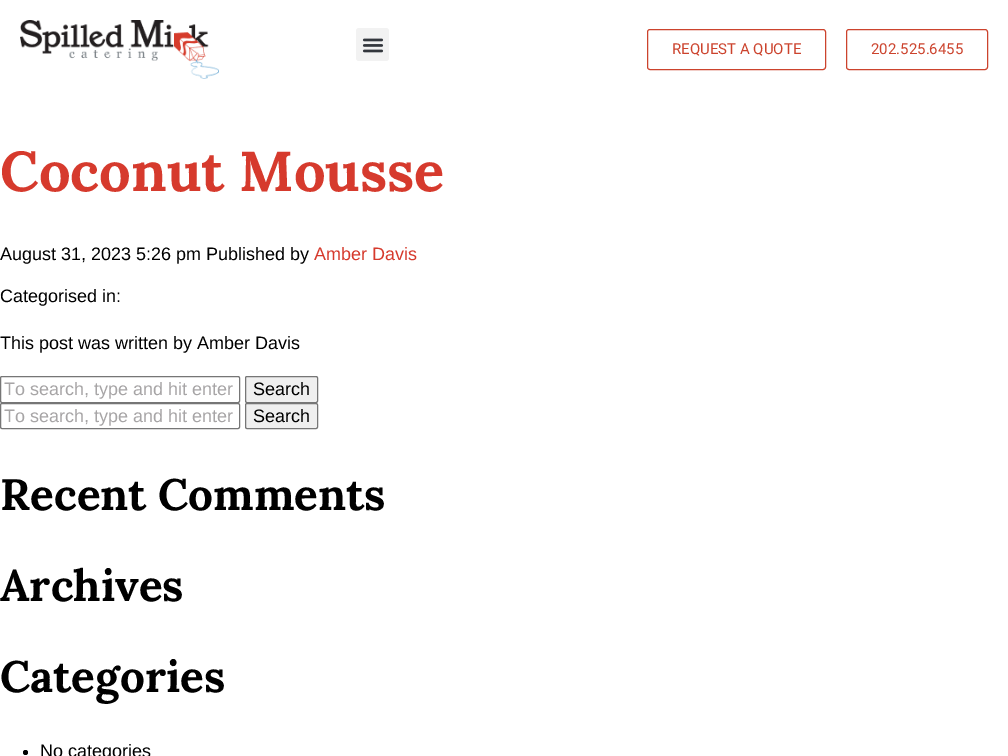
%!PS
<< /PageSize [1008 756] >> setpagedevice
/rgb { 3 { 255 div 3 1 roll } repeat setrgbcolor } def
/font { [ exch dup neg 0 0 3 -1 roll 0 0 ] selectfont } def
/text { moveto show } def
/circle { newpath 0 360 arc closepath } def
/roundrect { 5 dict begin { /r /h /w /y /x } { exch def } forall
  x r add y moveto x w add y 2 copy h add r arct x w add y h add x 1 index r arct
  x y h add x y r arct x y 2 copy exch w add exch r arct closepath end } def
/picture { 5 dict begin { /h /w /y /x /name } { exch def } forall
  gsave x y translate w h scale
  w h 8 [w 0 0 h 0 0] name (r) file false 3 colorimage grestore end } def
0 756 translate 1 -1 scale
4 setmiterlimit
255 255 255 rgb
0 0 1008 756 rectfill
(img_01.rgb) 20 20 199 59 picture
242 242 242 rgb
356 28 33 33 3 roundrect fill
(img_02.rgb) 362 38 22 15 picture
204 67 45 rgb
647.5 29.5 178 40 2.5 roundrect stroke
846.5 29.5 141 40 2.5 roundrect stroke
118 118 118 rgb
0.5 376.5 239 26 1.5 roundrect stroke
239 239 239 rgb
245.5 376.5 72 26 1.5 roundrect gsave fill grestore
118 118 118 rgb
stroke
0.5 403.5 239 25 1.5 roundrect stroke
239 239 239 rgb
245.5 403.5 72 25 1.5 roundrect gsave fill grestore
118 118 118 rgb
stroke
0 0 0 rgb
25.5 752.5 2.5 circle fill
/Roboto-Regular 15 font
204 67 45 rgb
(REQUEST A QUOTE) 672 54 text
(202.525.6455) 871 54 text
/Lora-Bold 56 font
214 58 45 rgb
(Coconut Mousse) 0 191 text
/LiberationSans-Regular 18 font
0 0 0 rgb
(August 31, 2023 5:26 pm Published by) 0 260 text
214 58 45 rgb
(Amber Davis) 314 260 text
0 0 0 rgb
(Categorised in:) 0 302 text
(This post was written by Amber Davis) 0 349 text
167 165 166 rgb
(To search, type and hit enter) 4 395 text
0 0 0 rgb
(Search) 253 395 text
167 165 166 rgb
(To search, type and hit enter) 4 422 text
0 0 0 rgb
(Search) 253 422 text
/Lora-Bold 44 font
(Recent Comments) 0 510 text
(Archives) 0 601 text
(Categories) 0 692 text
/LiberationSans-Regular 18 font
(No categories) 40 757 text
showpage
